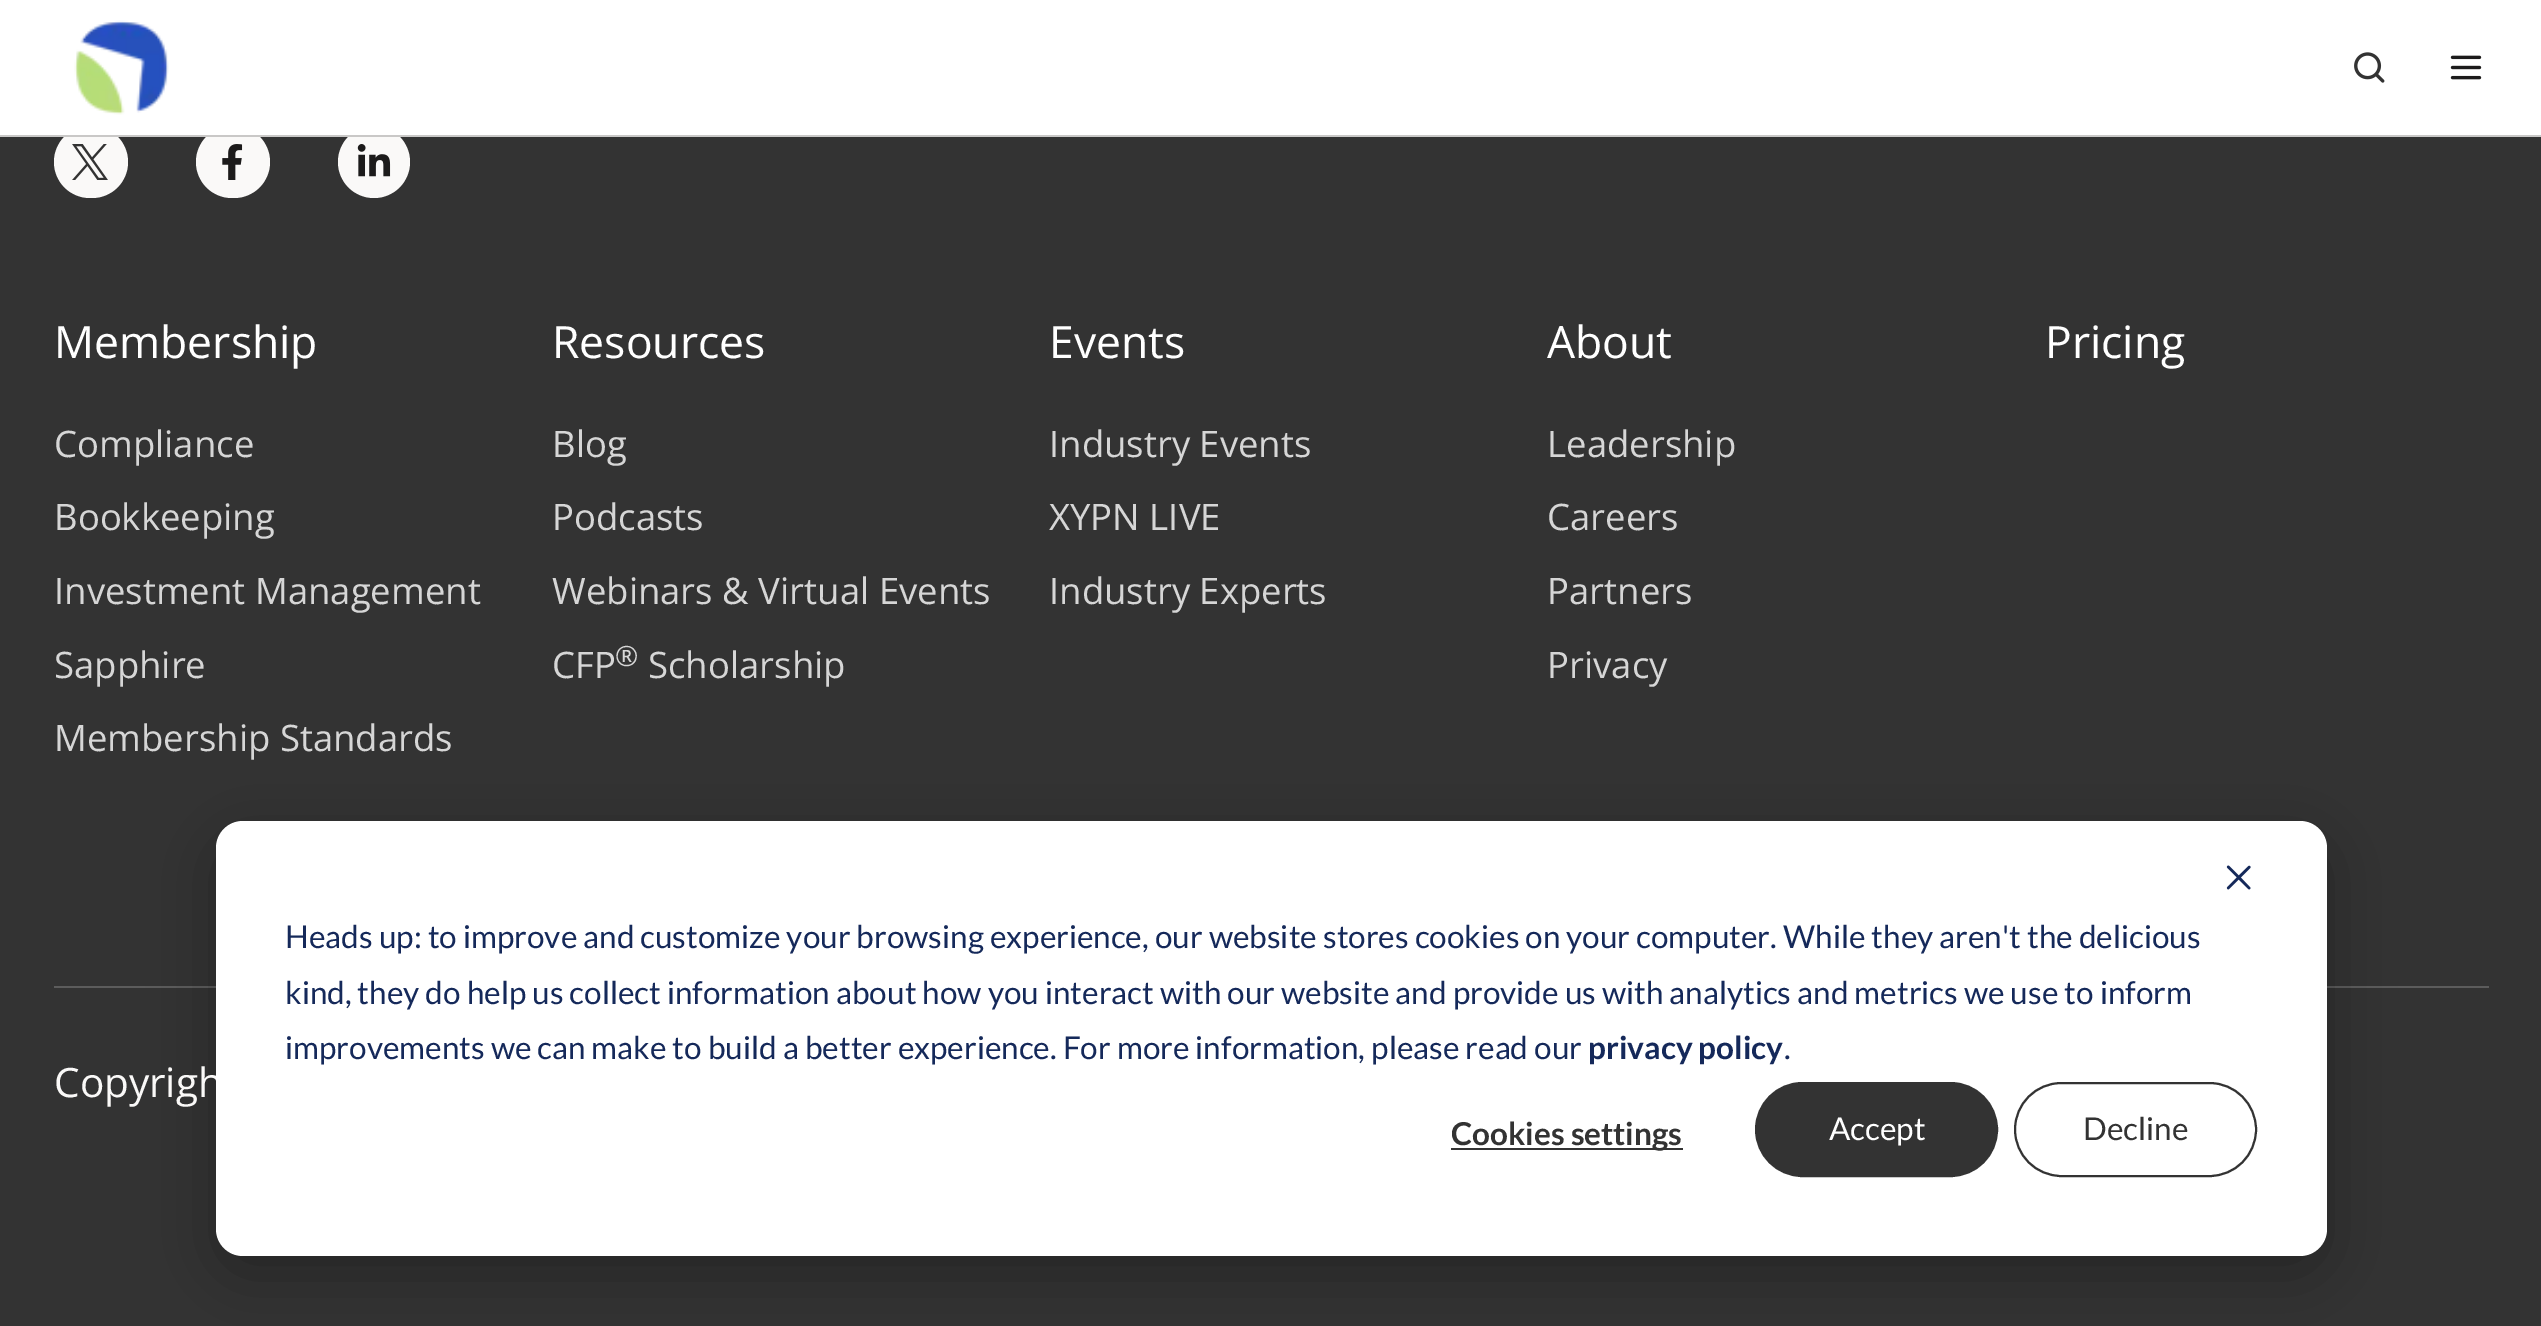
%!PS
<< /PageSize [2541 1326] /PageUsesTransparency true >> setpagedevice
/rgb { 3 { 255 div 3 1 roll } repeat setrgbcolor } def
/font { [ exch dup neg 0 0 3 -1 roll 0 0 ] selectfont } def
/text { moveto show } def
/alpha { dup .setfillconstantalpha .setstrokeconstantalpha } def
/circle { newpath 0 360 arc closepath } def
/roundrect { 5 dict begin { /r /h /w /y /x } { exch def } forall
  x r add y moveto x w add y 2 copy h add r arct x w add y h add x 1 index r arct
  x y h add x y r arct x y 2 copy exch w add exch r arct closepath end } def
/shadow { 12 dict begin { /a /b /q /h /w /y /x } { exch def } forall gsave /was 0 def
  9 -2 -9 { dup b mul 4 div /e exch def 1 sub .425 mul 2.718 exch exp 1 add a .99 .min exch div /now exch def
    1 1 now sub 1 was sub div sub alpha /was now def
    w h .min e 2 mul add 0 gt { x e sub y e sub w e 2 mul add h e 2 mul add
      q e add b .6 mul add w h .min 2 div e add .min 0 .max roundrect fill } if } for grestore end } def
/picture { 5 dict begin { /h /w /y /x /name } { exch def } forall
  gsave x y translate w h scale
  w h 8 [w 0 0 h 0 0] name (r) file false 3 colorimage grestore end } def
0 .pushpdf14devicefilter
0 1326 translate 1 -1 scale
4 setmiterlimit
51 51 51 rgb
0 0 2541 1326 rectfill
250 249 248 rgb
54 126 74 72 36 roundrect fill
196 126 74 72 36 roundrect fill
374 162 36 circle fill
255 255 255 rgb
0 0 2541 135 rectfill
201 200 199 rgb
0 135 2541 2 rectfill
(img_01.rgb) 74 20 95 95 picture
(img_02.rgb) 2354 52 31 31 picture
(img_03.rgb) 2450 55 32 25 picture
(img_04.rgb) 72 144 36 36 picture
(img_05.rgb) 222 144 21 36 picture
(img_06.rgb) 357 144 34 33 picture
92 92 92 rgb
54 986 2435 2 rectfill
0 0 0 rgb
216 839 2111 435 27 31.5 0.28 shadow
/OpenSans-Regular 44.5 font
255 255 255 rgb
(Membership) 54 358 text
/OpenSans-Regular 36.5 font
214 214 214 rgb
(Compliance) 54 457 text
(Bookkeeping) 54 530 text
(Investment Management) 54 604 text
(Sapphire) 54 678 text
(Membership Standards) 54 751 text
/OpenSans-Regular 44.5 font
255 255 255 rgb
(Resources) 552 358 text
/OpenSans-Regular 36.5 font
214 214 214 rgb
(Blog) 552 457 text
(Podcasts) 552 530 text
(Webinars & Virtual Events) 552 604 text
(CFP) 552 678 text
/OpenSans-Regular 28 font
(®) 615 666 text
/OpenSans-Regular 36.5 font
(Scholarship) 648 678 text
/OpenSans-Regular 44.5 font
255 255 255 rgb
(Events) 1049 358 text
/OpenSans-Regular 36.5 font
214 214 214 rgb
(Industry Events) 1049 457 text
(XYPN LIVE) 1049 530 text
(Industry Experts) 1049 604 text
/OpenSans-Regular 44.5 font
255 255 255 rgb
(About) 1547 358 text
/OpenSans-Regular 36.5 font
214 214 214 rgb
(Leadership) 1547 457 text
(Careers) 1547 530 text
(Partners) 1547 604 text
(Privacy) 1547 678 text
/OpenSans-Regular 44.5 font
255 255 255 rgb
(Pricing) 2045 358 text
/OpenSans-Regular 40.5 font
250 249 248 rgb
(Copyrigh) 54 1097 text
255 255 255 rgb
216 821 2111 435 27 roundrect fill
(img_07.rgb) 2226 865 25 25 picture
/Lato-Regular 31.5 font
21 41 90 rgb
(Heads up: to improve and customize your browsing experience, our website stores cookies on your computer. While they aren't the delicious) 285 948 text
(kind, they do help us collect information about how you interact with our website and provide us with analytics and metrics we use to inform) 285 1004 text
(improvements we can make to build a better experience. For more information, please read our) 285 1059 text
/Lato-Bold 31.5 font
(privacy policy) 1588 1059 text
/Lato-Regular 31.5 font
(.) 1784 1059 text
51 51 51 rgb
1451 1148 232 2 rectfill
/Lato-Bold 31.5 font
(Cookies settings) 1451 1145 text
1756 1083 241 93 46.5 roundrect gsave fill grestore
2 setlinewidth
stroke
/Lato-Regular 31.5 font
255 255 255 rgb
(Accept) 1829 1140 text
51 51 51 rgb
2015 1083 241 93 46.5 roundrect stroke
(Decline) 2083 1140 text
.poppdf14devicefilter showpage
